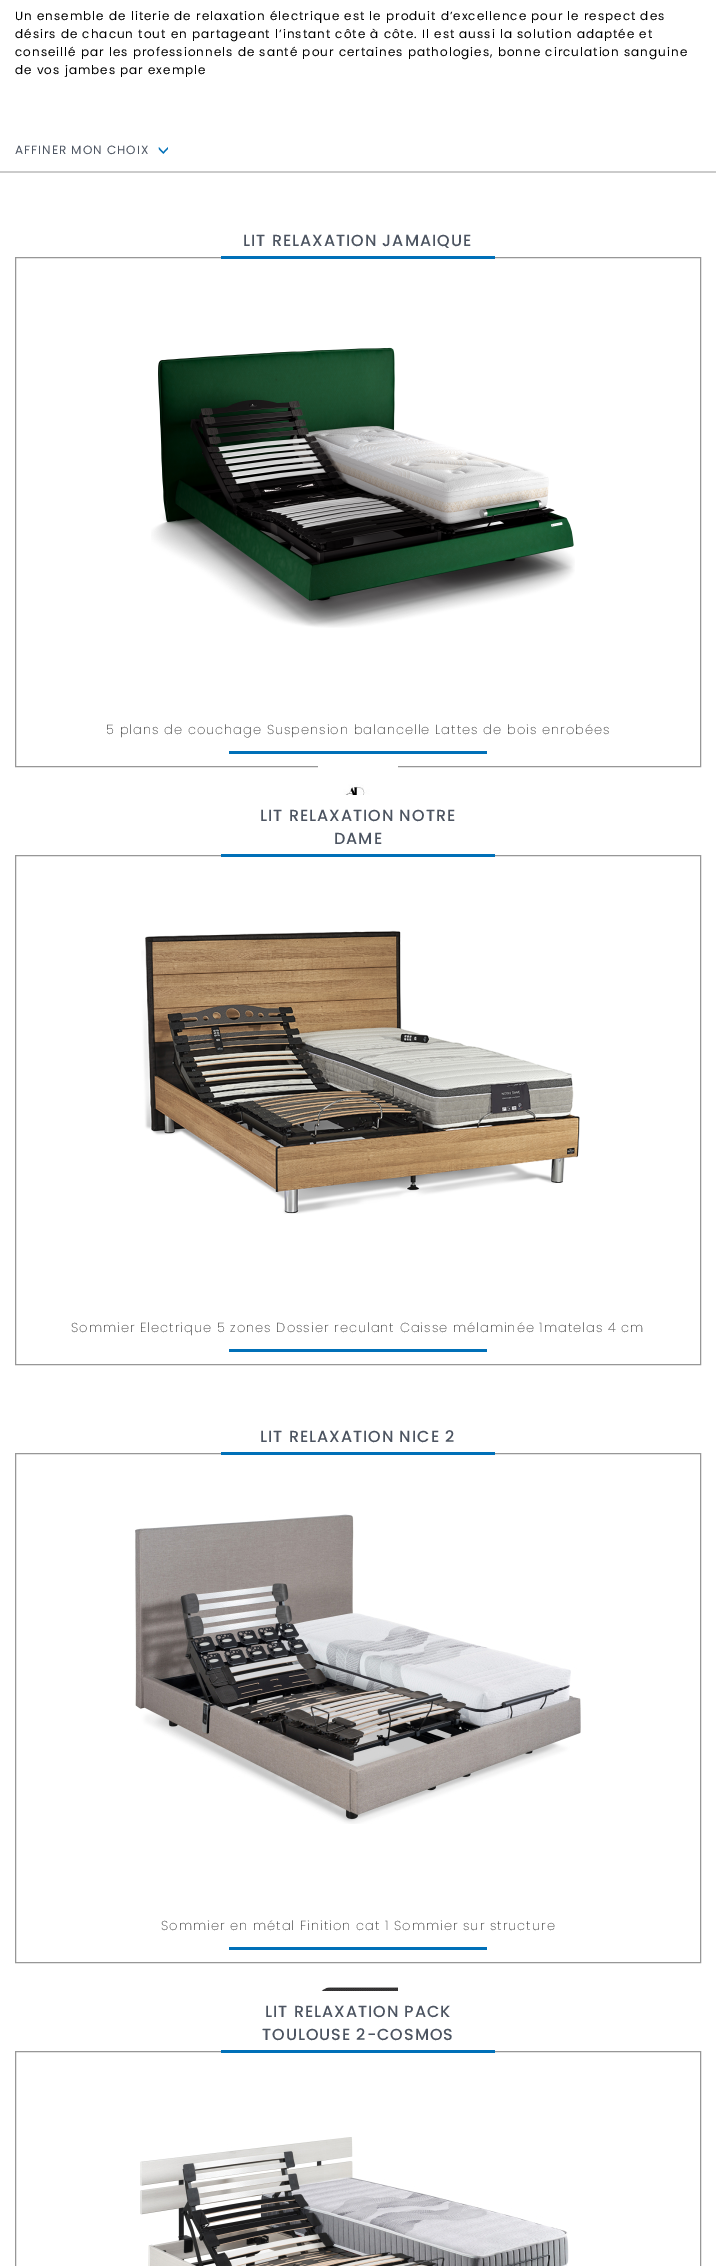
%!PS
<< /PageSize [716 2266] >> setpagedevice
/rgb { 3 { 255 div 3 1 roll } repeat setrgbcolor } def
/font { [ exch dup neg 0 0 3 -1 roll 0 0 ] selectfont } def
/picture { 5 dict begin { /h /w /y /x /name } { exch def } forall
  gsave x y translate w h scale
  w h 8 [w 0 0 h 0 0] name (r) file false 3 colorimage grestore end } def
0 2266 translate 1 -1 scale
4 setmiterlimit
255 255 255 rgb
0 0 716 2266 rectfill
203 203 203 rgb
0 171 716 2 rectfill
151 151 151 rgb
15.5 257.5 685 509 rectstroke
0 112 184 rgb
221 256 274 3 rectfill
(img_01.rgb) 151 347 424 281 picture
229 751 258 3 rectfill
(img_02.rgb) 318 766 80 29 picture
151 151 151 rgb
15.5 855.5 685 509 rectstroke
0 112 184 rgb
221 854 274 3 rectfill
(img_03.rgb) 141 930 439 284 picture
229 1349 258 3 rectfill
151 151 151 rgb
15.5 1453.5 685 509 rectstroke
0 112 184 rgb
221 1452 274 3 rectfill
(img_04.rgb) 135 1514 446 310 picture
229 1947 258 3 rectfill
(img_05.rgb) 321 1987 77 4 picture
151 151 151 rgb
15.5 2051.5 685 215 rectstroke
0 112 184 rgb
221 2050 274 3 rectfill
(img_06.rgb) 140 2137 429 129 picture
/Poppins-Regular 12 font
0 0 0 rgb
15 20 moveto 1 0 (Un ensemble de literie de relaxation électrique est le produit d’excellence pour le respect des) ashow
15 38 moveto 1 0 (désirs de chacun tout en partageant l’instant côte à côte. Il est aussi la solution adaptée et) ashow
15 56 moveto 1 0 (conseillé par les professionnels de santé pour certaines pathologies, bonne circulation sanguine) ashow
15 74 moveto 1 0 (de vos jambes par exemple) ashow
76 84 97 rgb
15 154 moveto 1 0 (AFFINER MON CHOIX) ashow
/Poppins-Regular 20 font
0 112 184 rgb
gsave 156 145 translate 90 rotate 0 0 moveto 1 0 (>) ashow grestore
/Poppins-Medium 16 font
76 84 97 rgb
243 246 moveto 1 0 (LIT RELAXATION JAMAIQUE) ashow
/Poppins-ExtraLight 13 font
74 74 74 rgb
106 734 moveto 1 0 (5 plans de couchage Suspension balancelle Lattes de bois enrobées) ashow
/Poppins-Medium 16 font
76 84 97 rgb
260 821 moveto 1 0 (LIT RELAXATION NOTRE) ashow
334 844 moveto 1 0 (DAME) ashow
/Poppins-ExtraLight 13 font
74 74 74 rgb
71 1332 moveto 1 0 (Sommier Electrique 5 zones Dossier reculant Caisse mélaminée 1matelas 4 cm) ashow
/Poppins-Medium 16 font
76 84 97 rgb
260 1442 moveto 1 0 (LIT RELAXATION NICE 2) ashow
/Poppins-ExtraLight 13 font
74 74 74 rgb
161 1930 moveto 1 0 (Sommier en métal Finition cat 1 Sommier sur structure) ashow
/Poppins-Medium 16 font
76 84 97 rgb
265 2017 moveto 1 0 (LIT RELAXATION PACK) ashow
262 2040 moveto 1 0 (TOULOUSE 2-COSMOS) ashow
showpage
